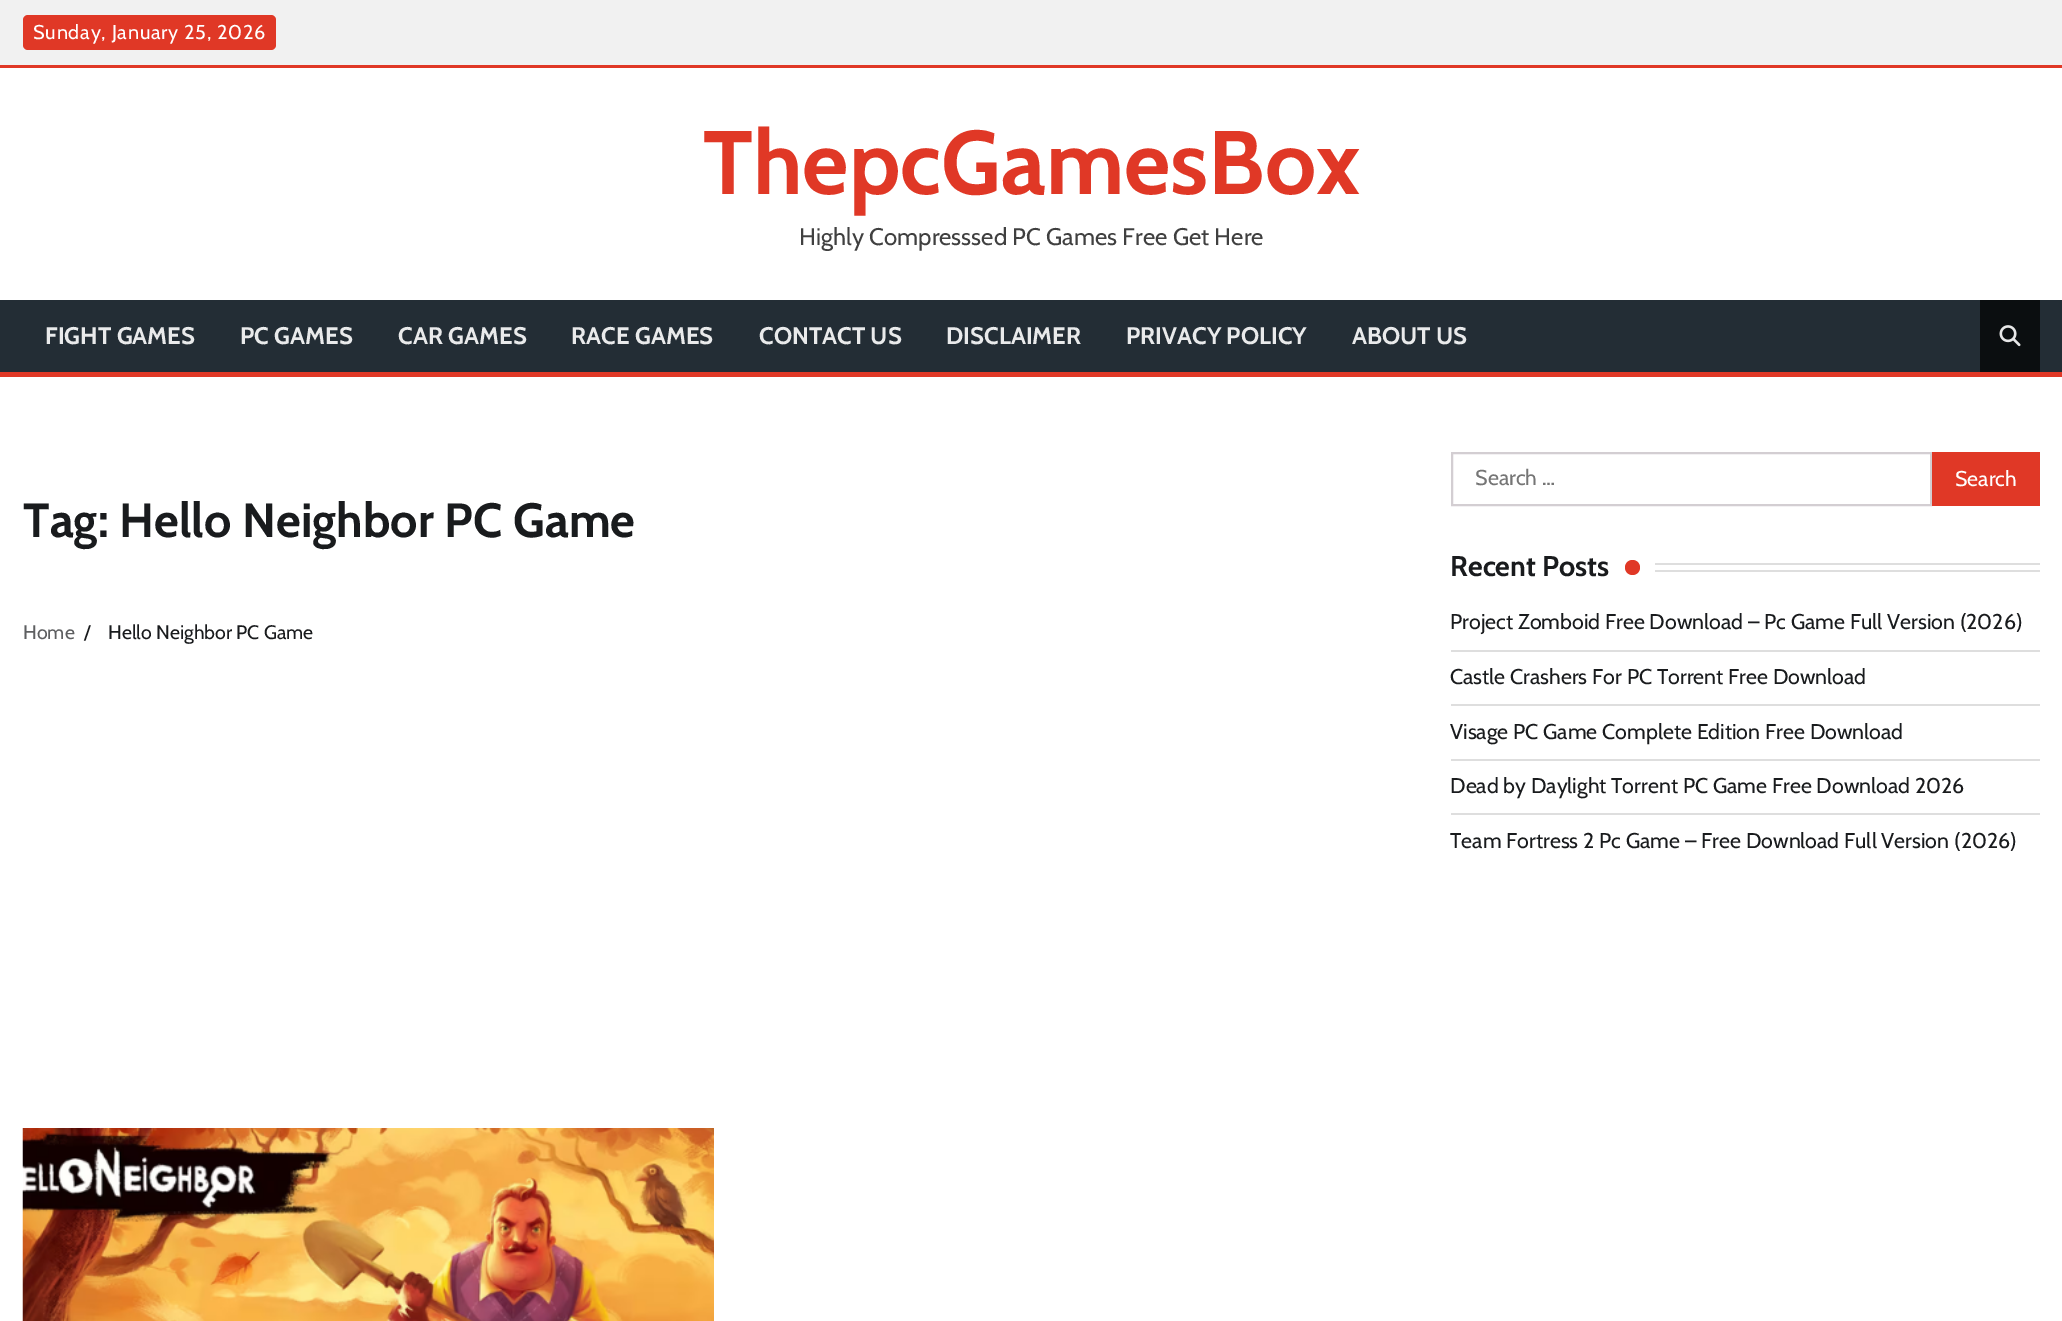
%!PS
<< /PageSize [2062 1321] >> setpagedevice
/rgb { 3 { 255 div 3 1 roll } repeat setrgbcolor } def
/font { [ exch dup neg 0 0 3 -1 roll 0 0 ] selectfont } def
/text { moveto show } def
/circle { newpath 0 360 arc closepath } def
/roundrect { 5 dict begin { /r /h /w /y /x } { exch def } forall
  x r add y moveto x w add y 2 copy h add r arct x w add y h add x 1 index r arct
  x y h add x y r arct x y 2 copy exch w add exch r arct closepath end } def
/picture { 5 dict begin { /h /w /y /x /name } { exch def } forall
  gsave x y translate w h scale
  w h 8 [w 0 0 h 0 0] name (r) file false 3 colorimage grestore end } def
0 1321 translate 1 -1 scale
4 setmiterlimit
255 255 255 rgb
0 0 2062 1321 rectfill
241 241 241 rgb
0 0 2062 65 rectfill
224 56 38 rgb
0 65 2062 3 rectfill
23 15 253 35 5 roundrect fill
35 45 53 rgb
0 300 2062 72 rectfill
224 56 38 rgb
0 372 2062 5 rectfill
11 14 16 rgb
1980 300 60 72 rectfill
(img_01.rgb) 1999 325 22 22 picture
(img_02.rgb) 22 1128 692 193 picture
211 206 210 rgb
2 setlinewidth
1452 453 479 52 rectstroke
224 56 38 rgb
1932 452 108 54 rectfill
1632.5 567.5 7.5 circle fill
222 222 222 rgb
1655 563 385 2 rectfill
1655 570 385 2 rectfill
1451 650 589 2 rectfill
1451 704 589 2 rectfill
1451 759 589 2 rectfill
1451 813 589 2 rectfill
/Cabin-Regular 19.9 font
255 255 255 rgb
33 39 moveto 0.75 0 (Sunday, January 25, 2026) ashow
/Cabin-Bold 90 font
224 56 38 rgb
(ThepcGamesBox) 703 194 text
/Cabin-Regular 24 font
64 64 64 rgb
(Highly Compresssed PC Games Free Get Here) 799 245 text
/Cabin-Bold 24 font
233 234 235 rgb
(FIGHT GAMES) 45 344 text
(PC GAMES) 240 344 text
(CAR GAMES) 398 344 text
(RACE GAMES) 571 344 text
(CONTACT US) 759 344 text
(DISCLAIMER) 946 344 text
(PRIVACY POLICY) 1126 344 text
(ABOUT US) 1352 344 text
/Cabin-Bold 48 font
25 27 29 rgb
(Tag: Hello Neighbor PC Game) 23 537 text
/Cabin-Regular 19.5 font
94 95 97 rgb
(Home) 23 639 text
25 27 29 rgb
(/) 84 639 text
(Hello Neighbor PC Game) 108 639 text
/Cabin-Regular 21.5 font
117 117 117 rgb
(Search …) 1475 485 text
/Cabin-Regular 21.35 font
255 255 255 rgb
(Search) 1955 486 text
/Cabin-Bold 28.5 font
25 27 29 rgb
(Recent Posts) 1450 576 text
/Cabin-Regular 21.35 font
(Project Zomboid Free Download – Pc Game Full Version \(2026\)) 1450 629 text
(Castle Crashers For PC Torrent Free Download) 1450 684 text
(Visage PC Game Complete Edition Free Download) 1450 739 text
(Dead by Daylight Torrent PC Game Free Download 2026) 1450 793 text
(Team Fortress 2 Pc Game – Free Download Full Version \(2026\)) 1450 848 text
showpage
